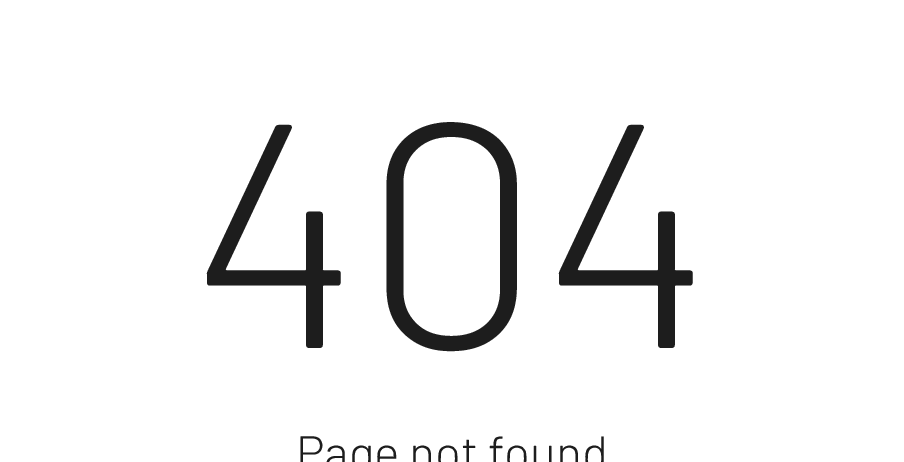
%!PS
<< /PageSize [904 462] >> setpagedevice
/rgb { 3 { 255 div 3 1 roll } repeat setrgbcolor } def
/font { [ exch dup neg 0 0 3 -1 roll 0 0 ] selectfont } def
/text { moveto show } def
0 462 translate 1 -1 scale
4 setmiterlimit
255 255 255 rgb
0 0 904 462 rectfill
/Barlow-Light 320 font
29 29 29 rgb
(404) 190 348 text
/Barlow-Light 48 font
(Page not found) 296 470 text
showpage
